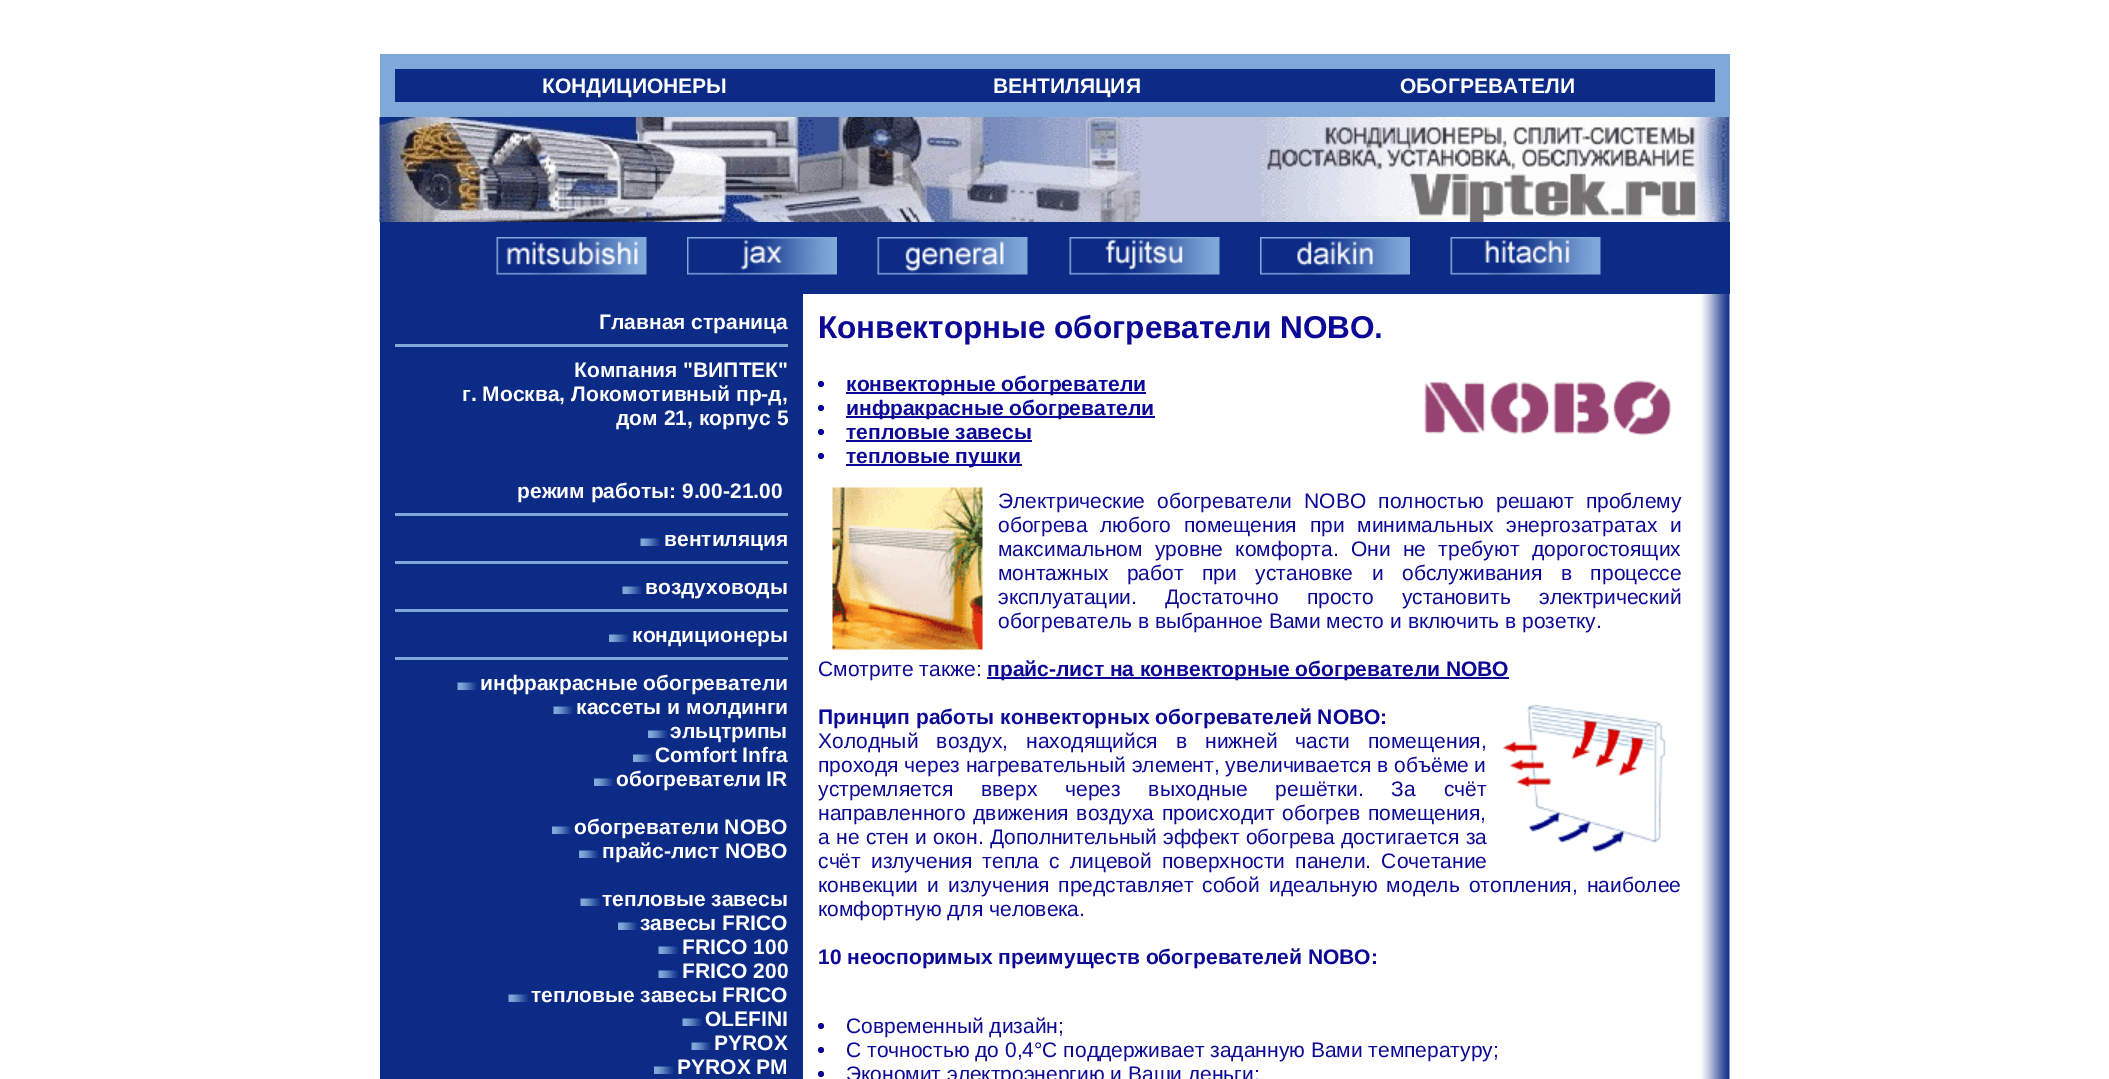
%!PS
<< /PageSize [2109 1079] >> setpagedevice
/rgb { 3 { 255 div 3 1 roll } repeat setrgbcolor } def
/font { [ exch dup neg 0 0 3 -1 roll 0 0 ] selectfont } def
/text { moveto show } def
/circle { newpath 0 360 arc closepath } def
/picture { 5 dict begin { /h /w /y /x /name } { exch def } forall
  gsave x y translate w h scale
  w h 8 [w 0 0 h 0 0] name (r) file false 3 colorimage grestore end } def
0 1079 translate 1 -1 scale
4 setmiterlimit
255 255 255 rgb
0 0 2109 1079 rectfill
128 168 217 rgb
380 54 1350 63 rectfill
11 43 135 rgb
395 69 1320 33 rectfill
(img_01.rgb) 379 117 1351 105 picture
380 222 1350 72 rectfill
(img_02.rgb) 496 237 151 38 picture
(img_03.rgb) 687 237 150 38 picture
(img_04.rgb) 877 237 151 38 picture
(img_05.rgb) 1069 237 151 38 picture
(img_06.rgb) 1260 237 150 38 picture
(img_07.rgb) 1450 237 151 38 picture
380 294 423 785 rectfill
128 168 217 rgb
395 344 393 3 rectfill
395 513 393 3 rectfill
(img_08.rgb) 640 538 20 8 picture
395 561 393 3 rectfill
(img_08.rgb) 622 586 20 8 picture
395 609 393 3 rectfill
(img_09.rgb) 609 634 20 8 picture
395 657 393 3 rectfill
(img_10.rgb) 457 682 20 8 picture
(img_08.rgb) 553 706 20 8 picture
(img_09.rgb) 648 730 20 8 picture
(img_09.rgb) 633 754 20 8 picture
(img_11.rgb) 594 778 20 8 picture
(img_09.rgb) 552 826 20 8 picture
(img_11.rgb) 579 850 20 8 picture
(img_08.rgb) 580 898 20 8 picture
(img_09.rgb) 618 922 20 8 picture
(img_08.rgb) 658 946 20 8 picture
(img_08.rgb) 658 970 20 8 picture
(img_10.rgb) 508 994 20 8 picture
(img_08.rgb) 682 1018 20 8 picture
(img_08.rgb) 691 1042 20 8 picture
(img_09.rgb) 654 1066 20 8 picture
13 9 151 rgb
821 384 3 circle fill
846 392 300 2 rectfill
(img_12.rgb) 1424 380 248 56 picture
821 408 3 circle fill
846 416 309 2 rectfill
821 432 3 circle fill
846 440 186 2 rectfill
821 456 3 circle fill
846 464 176 2 rectfill
(img_13.rgb) 832 487 151 163 picture
987 677 522 2 rectfill
(img_14.rgb) 1502 704 164 150 picture
821 1026 3 circle fill
821 1050 3 circle fill
821 1074 3 circle fill
(img_15.rgb) 1701 294 29 785 picture
/LiberationSans-Bold 21 font
255 255 255 rgb
(КОНДИЦИОНЕРЫ) 542 93 text
(ВЕНТИЛЯЦИЯ) 993 93 text
(ОБОГРЕВАТЕЛИ) 1400 93 text
(Главная страница) 599 329 text
(Компания "ВИПТЕК") 574 377 text
(г. Москва, Локомотивный пр-д,) 462 401 text
(дом 21, корпус 5) 616 425 text
(режим работы: 9.00-21.00) 517 498 text
(вентиляция) 664 546 text
(воздуховоды) 645 594 text
(кондиционеры) 632 642 text
(инфракрасные обогреватели) 480 690 text
(кассеты и молдинги) 576 714 text
(эльцтрипы) 670 738 text
(Comfort Infra) 655 762 text
(обогреватели IR) 616 786 text
(обогреватели NOBO) 574 834 text
(прайс-лист NOBO) 602 858 text
(тепловые завесы) 602 906 text
(завесы FRICO) 640 930 text
(FRICO 100) 682 954 text
(FRICO 200) 682 978 text
(тепловые завесы FRICO) 531 1002 text
(OLEFINI) 705 1026 text
(PYROX) 714 1050 text
(PYROX PM) 677 1074 text
/LiberationSans-Bold 31.5 font
13 9 151 rgb
(Конвекторные обогреватели NOBO.) 818 338 text
/LiberationSans-Bold 21 font
(конвекторные обогреватели) 846 391 text
(инфракрасные обогреватели) 846 415 text
(тепловые завесы) 846 439 text
(тепловые пушки) 846 463 text
/LiberationSans-Regular 21 font
998 508 moveto 6.5 0 32 (Электрические обогреватели NOBO полностью решают проблему) widthshow
998 532 moveto 7 0 32 (обогрева любого помещения при минимальных энергозатратах и) widthshow
998 556 moveto 6.5 0 32 (максимальном уровне комфорта. Они не требуют дорогостоящих) widthshow
998 580 moveto 12.75 0 32 (монтажных работ при установке и обслуживания в процессе) widthshow
998 604 moveto 22.5 0 32 (эксплуатации. Достаточно просто установить электрический) widthshow
(обогреватель в выбранное Вами место и включить в розетку.) 998 628 text
(Смотрите также:) 818 676 text
/LiberationSans-Bold 21 font
(прайс-лист на конвекторные обогреватели NOBO) 987 676 text
(Принцип работы конвекторных обогревателей NOBO:) 818 724 text
/LiberationSans-Regular 21 font
818 748 moveto 12.25 0 32 (Холодный воздух, находящийся в нижней части помещения,) widthshow
(проходя через нагревательный элемент, увеличивается в объёме и) 818 772 text
818 796 moveto 22 0 32 (устремляется вверх через выходные решётки. За счёт) widthshow
818 820 moveto 2 0 32 (направленного движения воздуха происходит обогрев помещения,) widthshow
818 844 moveto 0.5 0 32 (а не стен и окон. Дополнительный эффект обогрева достигается за) widthshow
818 868 moveto 4.25 0 32 (счёт излучения тепла с лицевой поверхности панели. Сочетание) widthshow
818 892 moveto 3.25 0 32 (конвекции и излучения представляет собой идеальную модель отопления, наиболее) widthshow
(комфортную для человека.) 818 916 text
/LiberationSans-Bold 21 font
(10 неоспоримых преимуществ обогревателей NOBO:) 818 964 text
/LiberationSans-Regular 21 font
(Современный дизайн;) 846 1033 text
(С точностью до 0,4°С поддерживает заданную Вами температуру;) 846 1057 text
(Экономит электроэнергию и Ваши деньги;) 846 1081 text
showpage
